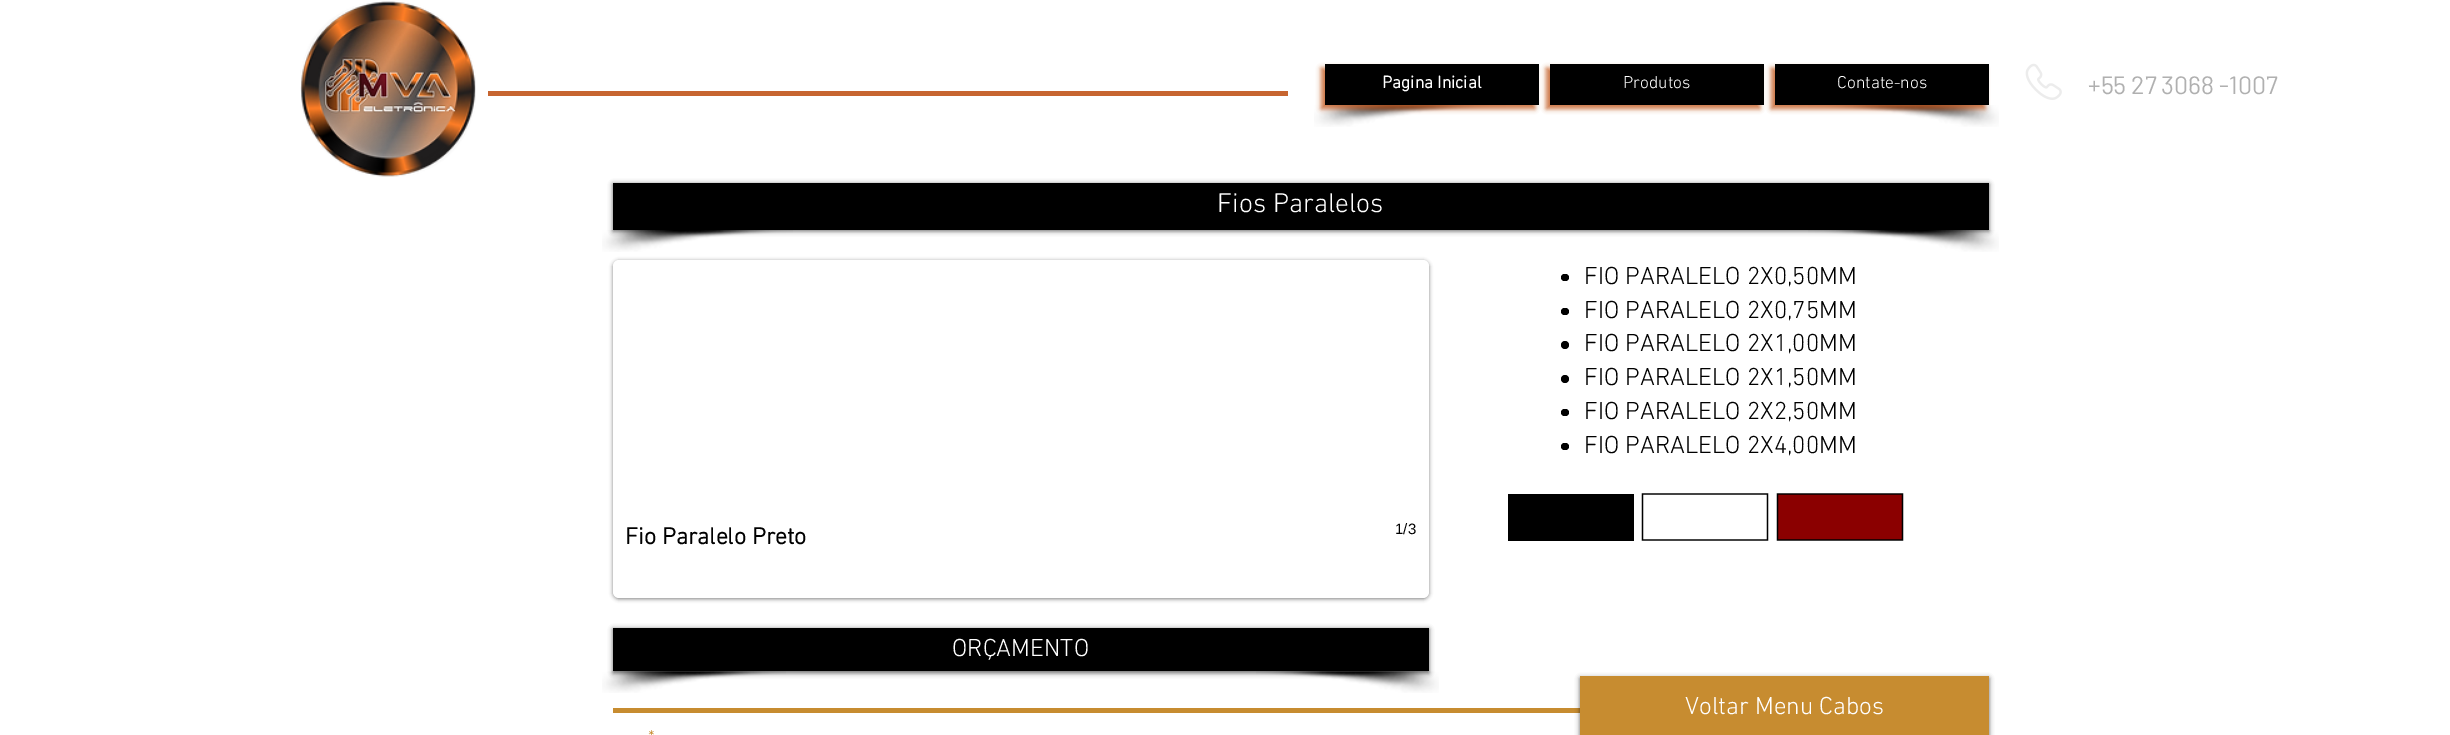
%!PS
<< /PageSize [2450 735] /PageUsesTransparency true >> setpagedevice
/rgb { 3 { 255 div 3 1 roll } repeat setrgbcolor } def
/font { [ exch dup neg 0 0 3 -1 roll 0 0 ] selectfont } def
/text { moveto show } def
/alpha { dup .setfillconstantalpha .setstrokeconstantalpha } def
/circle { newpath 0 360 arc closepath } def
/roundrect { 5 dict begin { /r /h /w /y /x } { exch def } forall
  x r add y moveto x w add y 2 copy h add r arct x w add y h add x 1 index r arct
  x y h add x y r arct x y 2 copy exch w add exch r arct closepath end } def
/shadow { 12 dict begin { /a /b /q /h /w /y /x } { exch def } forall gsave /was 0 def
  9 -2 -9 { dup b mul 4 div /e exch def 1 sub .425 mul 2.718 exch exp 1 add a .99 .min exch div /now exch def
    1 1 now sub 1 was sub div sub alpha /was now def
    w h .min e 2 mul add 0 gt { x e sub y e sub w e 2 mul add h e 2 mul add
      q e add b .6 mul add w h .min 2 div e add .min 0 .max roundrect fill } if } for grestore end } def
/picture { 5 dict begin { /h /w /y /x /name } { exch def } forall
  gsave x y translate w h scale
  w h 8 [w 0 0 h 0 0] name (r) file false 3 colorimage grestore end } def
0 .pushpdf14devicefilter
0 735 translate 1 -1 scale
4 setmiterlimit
255 255 255 rgb
0 0 2450 735 rectfill
(img_01.rgb) 300 1 176 176 picture
199 101 48 rgb
488 91 800 5 rectfill
(img_02.rgb) 1314 105 192 22 picture
1321 68 214 41 0 2.5 0.88 shadow
0 0 0 rgb
1325 64 214 41 rectfill
199 101 48 rgb
1546 68 214 41 0 2.5 0.88 shadow
0 0 0 rgb
1550 64 214 41 rectfill
(img_03.rgb) 1808 105 191 22 picture
199 101 48 rgb
1771 68 214 41 0 2.5 0.88 shadow
0 0 0 rgb
1775 64 214 41 rectfill
(img_04.rgb) 2025 63 37 37 picture
(img_05.rgb) 602 230 191 22 picture
(img_03.rgb) 1808 230 191 22 picture
613 184 1376 47 0 2.5 0.6 shadow
613 183 1376 47 rectfill
1561 274 8 7 3.5 roundrect fill
1561 308 8 7 3.5 roundrect fill
1565 345 4 circle fill
1565 379 4 circle fill
1561 409 8 7 3.5 roundrect fill
1561 443 8 7 3.5 roundrect fill
613 261 816 338 6 2 0.5 shadow
255 255 255 rgb
613 260 816 338 6 roundrect fill
0 0 0 rgb
1508 494 126 47 rectfill
1.2 setlinewidth
1767.5 494 moveto 0 46 rlineto -125 0 rlineto 0 -46 rlineto closepath stroke
139 0 0 rgb
1778 494 124 46 rectfill
0 0 0 rgb
1902.5 494 moveto 0 46 rlineto -125 0 rlineto 0 -46 rlineto closepath stroke
(img_06.rgb) 602 671 184 22 picture
(img_07.rgb) 1256 671 183 22 picture
613 629 816 44 0 2.5 0.6 shadow
613 628 816 43 rectfill
199 140 48 rgb
613 708 967 5 rectfill
0 0 0 rgb
1580 678 409 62 0 2.5 0.6 shadow
199 140 48 rgb
1580 676 409 59 rectfill
/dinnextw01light-Bold 17.5 font
255 255 255 rgb
(Pagina Inicial) 1382 88 text
/dinnextw01light-Light 17.5 font
(Produtos) 1623 88 text
(Contate-nos) 1837 88 text
/Barlow-Regular 25 font
176 176 176 rgb
(+55 27 3068 -1007) 2088 94 text
/dinnextw01light-Light 27.5 font
255 255 255 rgb
(Fios Paralelos) 1217 212 text
/dinnextw01light-Light 25 font
0 0 0 rgb
(FIO PARALELO 2X0,50MM) 1584 284 text
(FIO PARALELO 2X0,75MM) 1584 318 text
(FIO PARALELO 2X1,00MM) 1584 351 text
(FIO PARALELO 2X1,50MM) 1584 385 text
(FIO PARALELO 2X2,50MM) 1584 419 text
(FIO PARALELO 2X4,00MM) 1584 453 text
/dinnextw01light-Bold 23.75 font
(Fio Paralelo Preto) 625 544 text
/LiberationSans-Regular 15 font
(1/3) 1395 534 text
/dinnextw01light-Light 25 font
255 255 255 rgb
(ORÇAMENTO) 952 656 text
(Voltar Menu Cabos) 1685 714 text
/dinnextw01light-Light 19 font
199 140 48 rgb
(*) 648 743 text
.poppdf14devicefilter showpage
